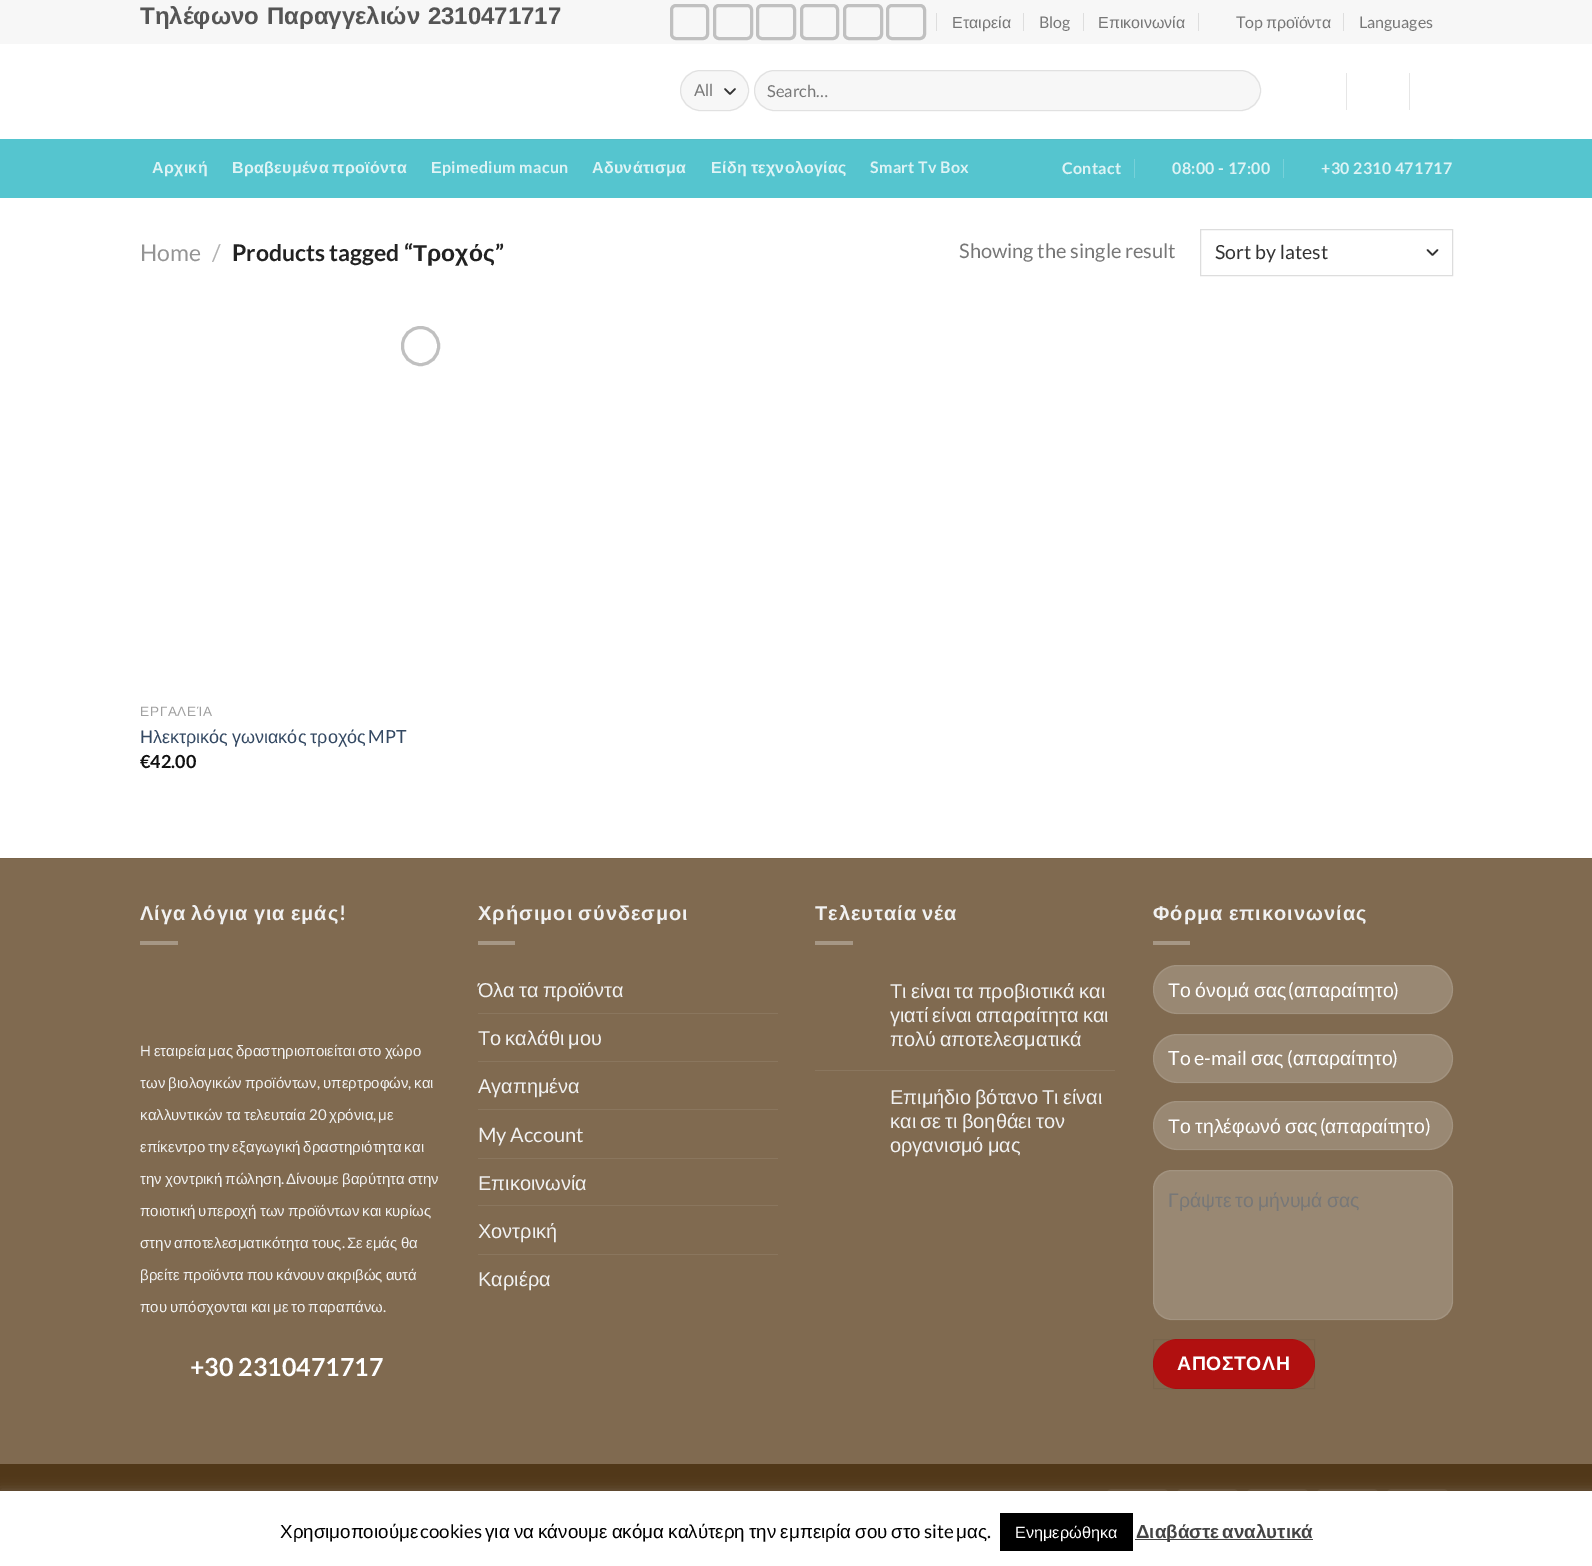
%!PS
<< /PageSize [1592 1566] /PageUsesTransparency true >> setpagedevice
/rgb { 3 { 255 div 3 1 roll } repeat setrgbcolor } def
/font { [ exch dup neg 0 0 3 -1 roll 0 0 ] selectfont } def
/text { moveto show } def
/alpha { dup .setfillconstantalpha .setstrokeconstantalpha } def
/roundrect { 5 dict begin { /r /h /w /y /x } { exch def } forall
  x r add y moveto x w add y 2 copy h add r arct x w add y h add x 1 index r arct
  x y h add x y r arct x y 2 copy exch w add exch r arct closepath end } def
/shadow { 12 dict begin { /a /b /q /h /w /y /x } { exch def } forall gsave /was 0 def
  9 -2 -9 { dup b mul 4 div /e exch def 1 sub .425 mul 2.718 exch exp 1 add a .99 .min exch div /now exch def
    1 1 now sub 1 was sub div sub alpha /was now def
    w h .min e 2 mul add 0 gt { x e sub y e sub w e 2 mul add h e 2 mul add
      q e add b .6 mul add w h .min 2 div e add .min 0 .max roundrect fill } if } for grestore end } def
0 .pushpdf14devicefilter
0 1566 translate 1 -1 scale
4 setmiterlimit
255 255 255 rgb
0 0 1592 1566 rectfill
247 247 247 rgb
0 0 1592 44 rectfill
192 192 192 rgb
3 setlinewidth
671.5 5.5 36 33 4.5 roundrect stroke
714.5 5.5 37 33 4.5 roundrect stroke
757.5 5.5 37 33 4.5 roundrect stroke
801.5 5.5 36 33 4.5 roundrect stroke
844.5 5.5 37 33 4.5 roundrect stroke
887.5 5.5 37 33 4.5 roundrect stroke
222 222 222 rgb
936 13 1 18 rectfill
1023 13 1 18 rectfill
1083 13 1 18 rectfill
1198 13 1 18 rectfill
1343 13 1 18 rectfill
247 247 247 rgb
680 70 69 41 20.5 roundrect fill
51 51 51 rgb
1.7 setlinewidth
1 setlinecap
1 setlinejoin
725 89 moveto 5 5 rlineto 5 -5 rlineto stroke
0.09 alpha
0 0 0 rgb
1 setlinewidth
0 setlinecap
0 setlinejoin
680.5 70.5 68 40 20 roundrect stroke
1 alpha
247 247 247 rgb
754 70 507 41 20.5 roundrect fill
0.09 alpha
0 0 0 rgb
754.5 70.5 506 40 20 roundrect stroke
1 alpha
230 230 230 rgb
1346 73 1 37 rectfill
1409 73 1 37 rectfill
85 197 207 rgb
0 139 1592 59 rectfill
88 189 198 rgb
140 139 1313 1 rectfill
119 209 217 rgb
1134 159 1 19 rectfill
1283 159 1 19 rectfill
51 51 51 rgb
1.7 setlinewidth
1 setlinecap
1 setlinejoin
1427.5 250 moveto 5 5 rlineto 5 -5 rlineto stroke
221 221 221 rgb
1 setlinewidth
0 setlinecap
0 setlinejoin
1200.5 229.5 252 46 rectstroke
192 192 192 rgb
3 setlinewidth
402.5 327.5 36 37 18 roundrect stroke
128 106 80 rgb
0 859 1592 605 rectfill
122 101 76 rgb
0 858 1592 1 rectfill
166 151 133 rgb
140 941 38 4 rectfill
478 941 37 4 rectfill
138 118 94 rgb
478 1013 300 1 rectfill
478 1061 300 1 rectfill
478 1109 300 1 rectfill
478 1158 300 1 rectfill
478 1205 300 1 rectfill
478 1254 300 1 rectfill
166 151 133 rgb
815 941 38 4 rectfill
138 118 94 rgb
815 1070 300 1 rectfill
166 151 133 rgb
1153 941 37 4 rectfill
153 136 115 rgb
1153 965 300 49 24.5 roundrect fill
0.09 alpha
255 255 255 rgb
1 setlinewidth
1153.5 965.5 299 48 24 roundrect stroke
1 alpha
153 136 115 rgb
1153 1034 300 49 24.5 roundrect fill
0.09 alpha
255 255 255 rgb
1153.5 1034.5 299 48 24 roundrect stroke
1 alpha
153 136 115 rgb
1153 1101 300 49 24.5 roundrect fill
0.09 alpha
255 255 255 rgb
1153.5 1101.5 299 48 24 roundrect stroke
1 alpha
153 136 115 rgb
1153 1170 300 150 19 roundrect fill
0.09 alpha
255 255 255 rgb
1153.5 1170.5 299 149 18.5 roundrect stroke
1 alpha
177 16 16 rgb
1153 1339 162 50 25 roundrect fill
0.05 alpha
0 0 0 rgb
1153.5 1339.5 161 49 rectstroke
1 alpha
81 56 25 rgb
0 1464 1592 27 rectfill
91 68 39 rgb
1106 1489 63 40 6 roundrect fill
1176 1489 63 40 6 roundrect fill
1246 1489 63 40 6 roundrect fill
1316 1489 63 40 6 roundrect fill
1386 1489 63 40 6 roundrect fill
172 171 171 rgb
0 1490 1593 75 0 6 0.3 shadow
255 255 255 rgb
0 1491 1592 75 rectfill
0 0 0 rgb
1000 1513 133 38 rectfill
68 68 68 rgb
1135 1539 178 1 rectfill
/LiberationSans-Bold 24 font
85 85 85 rgb
140 24 moveto 1 0 32 (Τηλέφωνο Παραγγελιών 2310471717) widthshow
/LiberationSans-Regular 16 font
119 119 119 rgb
(Εταιρεία) 952 28 text
/Lato-Regular 16 font
(Blog) 1039 28 text
/LiberationSans-Regular 16 font
(Επικοινωνία) 1098 28 text
/Lato-Regular 16 font
(Top) 1236 28 text
/LiberationSans-Regular 16 font
(προϊόντα) 1266 28 text
/Lato-Regular 16 font
(Languages) 1359 28 text
/Lato-Regular 16.5 font
(All) 694 96 text
(Search…) 767 97 text
/LiberationSans-Bold 16 font
221 243 245 rgb
152 173 moveto 0.3 0 (Αρχική) ashow
232 173 moveto -1 0 32 0.3 0 (Βραβευμένα προϊόντα) awidthshow
431 173 moveto 0.3 0 (Ε) ashow
/Lato-Bold 16 font
442 173 moveto 0.3 0 (pimedium macun) ashow
/LiberationSans-Bold 16 font
592 173 moveto 0.3 0 (Αδυνάτισμα) ashow
711 173 moveto -1 0 32 0.3 0 (Είδη τεχνολογίας) awidthshow
/Lato-Bold 16 font
870 173 moveto 0.3 0 (Smart Tv Box) ashow
1062 174 moveto 0.3 0 (Contact) ashow
1172 174 moveto 0.3 0 (08:00 - 17:00) ashow
1321 174 moveto 0.3 0 (+30 2310 471717) ashow
/Lato-Regular 23 font
148 148 148 rgb
(Home) 140 261 text
178 178 178 rgb
(/) 212 261 text
/Lato-Bold 23 font
34 34 34 rgb
(Products tagged “) 232 261 text
/LiberationSans-Bold 23 font
(Τροχός) 413 261 text
/Lato-Bold 23 font
(”) 495 261 text
/Lato-Regular 20 font
119 119 119 rgb
(Showing the single result) 959 258 text
/Lato-Regular 19.5 font
51 51 51 rgb
(Sort by latest) 1215 259 text
/LiberationSans-Regular 13.5 font
160 160 160 rgb
140 716 moveto 0.75 0 (ΕΡΓΑΛΕΊΑ) ashow
/LiberationSans-Regular 18 font
51 72 98 rgb
140 743 moveto -1 0 32 (Ηλεκτρικός γωνιακός τροχός) widthshow
/Lato-Regular 18 font
(MPT) 368 743 text
/Lato-Bold 18 font
17 17 17 rgb
(€42.00) 140 768 text
/LiberationSans-Bold 20 font
241 241 241 rgb
140 920 moveto -1.5 0 32 1 0 (Λίγα λόγια για εμάς) awidthshow
/Lato-Bold 20 font
339 920 moveto 1 0 (!) ashow
/LiberationSans-Regular 15 font
140 1056 moveto -1.25 0 32 (Η εταιρεία μας δραστηριοποιείται στο χώρο) widthshow
140 1088 moveto -1 0 32 (των βιολογικών προϊόντων) widthshow
/Lato-Regular 15 font
(,) 317 1088 text
/LiberationSans-Regular 15 font
(υπερτροφών) 323 1088 text
/Lato-Regular 15 font
(,) 408 1088 text
/LiberationSans-Regular 15 font
(και) 414 1088 text
140 1120 moveto -1 0 32 (καλλυντικών τα τελευταία) widthshow
/Lato-Regular 15 font
(20) 309 1120 text
/LiberationSans-Regular 15 font
(χρόνια) 329 1120 text
/Lato-Regular 15 font
(,) 373 1120 text
/LiberationSans-Regular 15 font
(με) 378 1120 text
140 1152 moveto -1.25 0 32 (επίκεντρο την εξαγωγική δραστηριότητα και) widthshow
140 1184 moveto -1 0 32 (την χοντρική πώληση) widthshow
/Lato-Regular 15 font
(.) 281 1184 text
/LiberationSans-Regular 15 font
286 1184 moveto -1 0 32 (Δίνουμε βαρύτητα στην) widthshow
140 1216 moveto -1.25 0 32 (ποιοτική υπεροχή των προϊόντων και κυρίως) widthshow
140 1248 moveto -1 0 32 (στην αποτελεσματικότητα τους) widthshow
/Lato-Regular 15 font
(.) 342 1248 text
/LiberationSans-Regular 15 font
347 1248 moveto -1 0 32 (Σε εμάς θα) widthshow
140 1280 moveto -1.25 0 32 (βρείτε προϊόντα που κάνουν ακριβώς αυτά) widthshow
140 1312 moveto -1.25 0 32 (που υπόσχονται και με το παραπάνω) widthshow
/Lato-Regular 15 font
(.) 383 1312 text
/Lato-Bold 25 font
255 255 255 rgb
(+30 2310471717) 190 1376 text
/LiberationSans-Bold 20 font
241 241 241 rgb
478 920 moveto -1.5 0 32 1 0 (Χρήσιμοι σύνδεσμοι) awidthshow
/LiberationSans-Regular 20 font
478 997 moveto -1.5 0 32 (Όλα τα προϊόντα) widthshow
478 1045 moveto -1.5 0 32 (Το καλάθι μου) widthshow
(Αγαπημένα) 478 1093 text
/Lato-Regular 20 font
(My Account) 478 1142 text
/LiberationSans-Regular 20 font
(Επικοινωνία) 478 1190 text
(Χοντρική) 478 1238 text
(Καριέρα) 478 1286 text
/LiberationSans-Bold 20 font
815 920 moveto -1.5 0 32 1 0 (Τελευταία νέα) awidthshow
/LiberationSans-Regular 20 font
890 998 moveto -1.5 0 32 (Τι είναι τα προβιοτικά και) widthshow
890 1022 moveto -1.5 0 32 (γιατί είναι απαραίτητα και) widthshow
890 1046 moveto -1.5 0 32 (πολύ αποτελεσματικά) widthshow
890 1104 moveto -1.5 0 32 (Επιμήδιο βότανο Τι είναι) widthshow
890 1128 moveto -1.5 0 32 (και σε τι βοηθάει τον) widthshow
890 1152 moveto -1.5 0 32 (οργανισμό μας) widthshow
/LiberationSans-Bold 20 font
1153 920 moveto -1.5 0 32 1 0 (Φόρμα επικοινωνίας) awidthshow
/LiberationSans-Regular 19.5 font
255 255 255 rgb
1168 997 moveto -1 0 32 (Το όνομά σας) widthshow
/Lato-Regular 19.5 font
(\() 1288 997 text
/LiberationSans-Regular 19.5 font
(απαραίτητο) 1294 997 text
/Lato-Regular 19.5 font
(\)) 1393 997 text
(To e-mail) 1168 1065 text
/LiberationSans-Regular 19.5 font
(σας) 1251 1065 text
/Lato-Regular 19.5 font
(\() 1287 1065 text
/LiberationSans-Regular 19.5 font
(απαραίτητο) 1293 1065 text
/Lato-Regular 19.5 font
(\)) 1392 1065 text
/LiberationSans-Regular 19.5 font
1168 1133 moveto -1 0 32 (Το τηλέφωνό σας) widthshow
/Lato-Regular 19.5 font
(\() 1320 1133 text
/LiberationSans-Regular 19.5 font
(απαραίτητο) 1325 1133 text
/Lato-Regular 19.5 font
(\)) 1425 1133 text
/LiberationSans-Regular 19.5 font
119 119 119 rgb
1168 1207 moveto -1.5 0 32 (Γράψτε το μήνυμά σας) widthshow
/LiberationSans-Bold 19.5 font
255 255 255 rgb
1177 1370 moveto 0.5 0 (ΑΠΟΣΤΟΛΗ) ashow
/LiberationSans-Regular 18.75 font
0 0 0 rgb
(Χρησιμοποιούμε) 280 1538 text
/Lato-Regular 18.75 font
(cookies) 420 1538 text
/LiberationSans-Regular 18.75 font
485 1538 moveto -1 0 32 (για να κάνουμε ακόμα καλύτερη την εμπειρία σου στο) widthshow
/Lato-Regular 18.75 font
(site) 924 1538 text
/LiberationSans-Regular 18.75 font
(μας) 956 1538 text
/Lato-Regular 18.75 font
(.) 987 1538 text
/LiberationSans-Regular 16.25 font
255 255 255 rgb
(Ενημερώθηκα) 1015 1538 text
/LiberationSans-Bold 18.75 font
68 68 68 rgb
1136 1538 moveto -2 0 32 (Διαβάστε αναλυτικά) widthshow
.poppdf14devicefilter showpage
